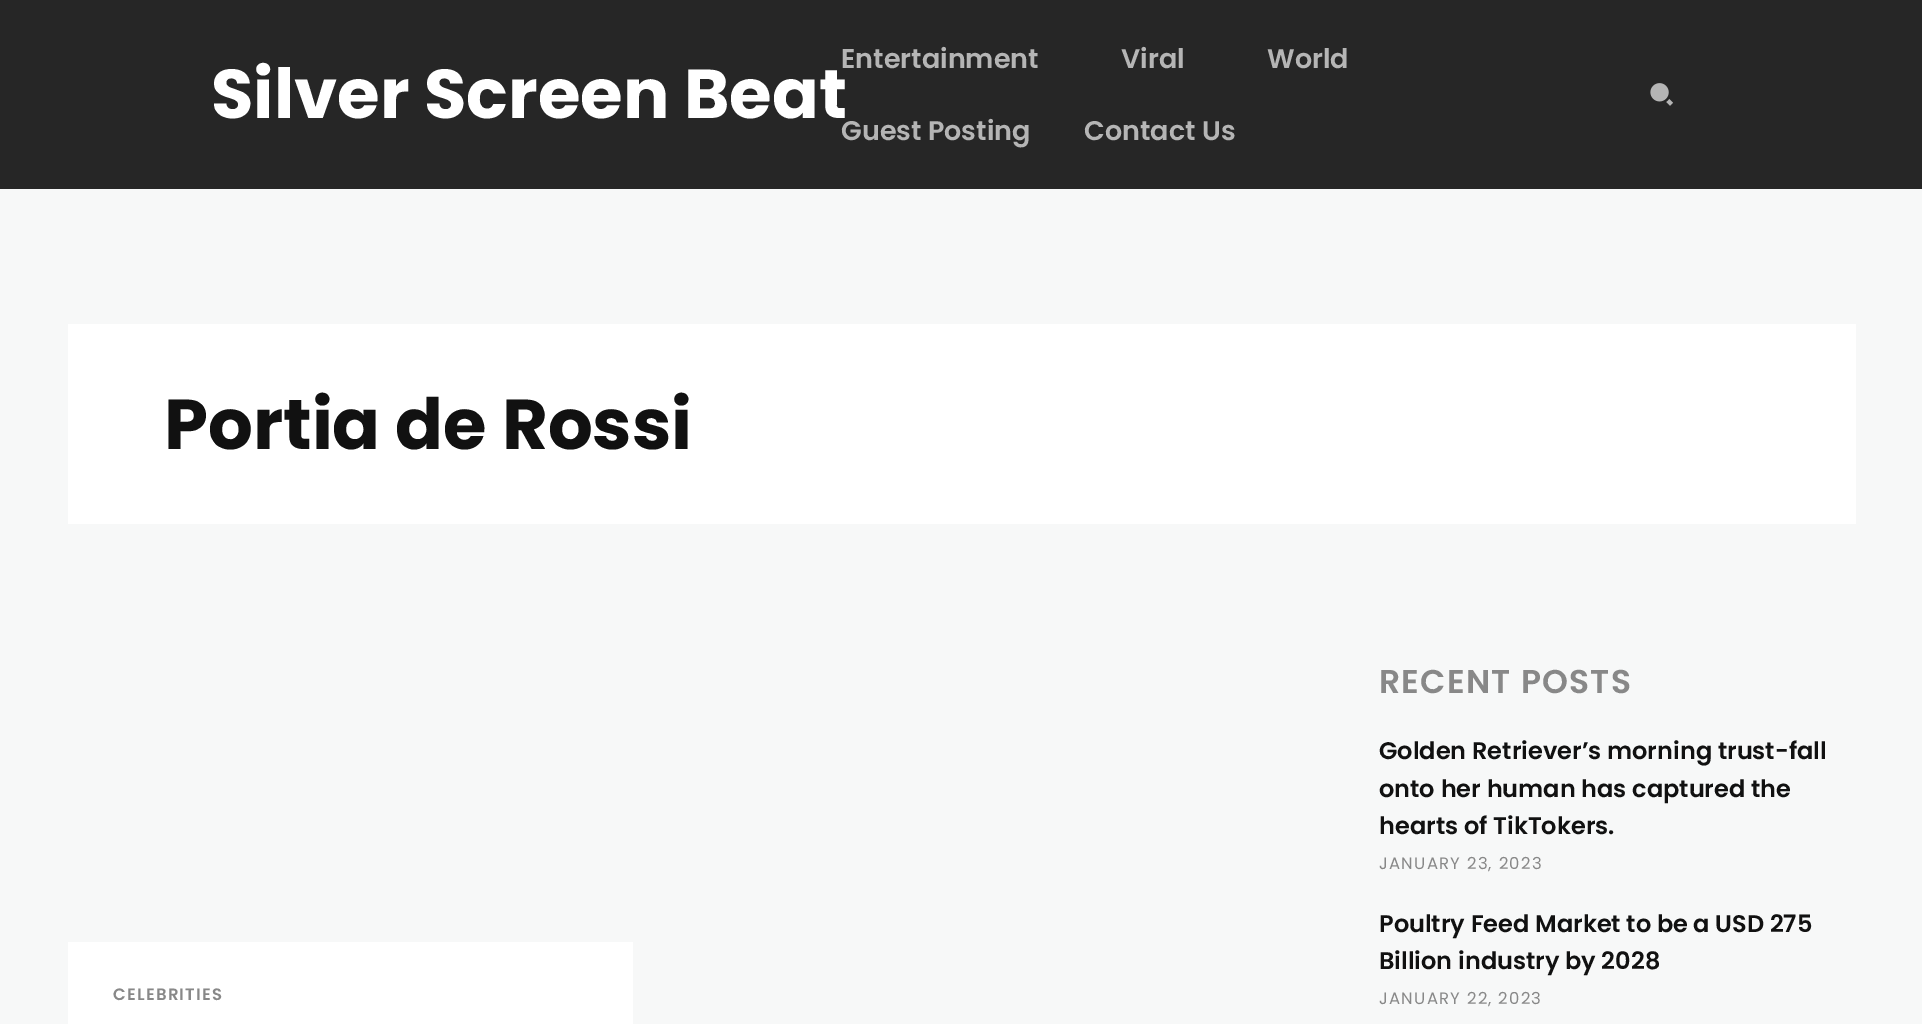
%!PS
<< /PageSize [1922 1024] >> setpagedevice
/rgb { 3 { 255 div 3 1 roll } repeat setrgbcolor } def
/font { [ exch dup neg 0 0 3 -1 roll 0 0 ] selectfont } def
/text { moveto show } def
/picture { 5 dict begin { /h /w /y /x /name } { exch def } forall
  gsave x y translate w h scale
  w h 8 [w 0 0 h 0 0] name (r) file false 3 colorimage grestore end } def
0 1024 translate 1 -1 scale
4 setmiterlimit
247 248 248 rgb
0 0 1922 1024 rectfill
38 38 38 rgb
0 0 1922 189 rectfill
(img_01.rgb) 1650 83 23 23 picture
255 255 255 rgb
68 324 1788 200 rectfill
68 942 565 82 rectfill
/Poppins-Bold 69 font
(Silver Screen Beat) 211 118 text
/Poppins-SemiBold 27 font
181 181 181 rgb
(Entertainment) 841 68 text
(Viral) 1121 68 text
(World) 1267 68 text
(Guest Posting) 841 140 text
(Contact Us) 1084 140 text
/Poppins-Bold 70.5 font
17 17 17 rgb
(Portia de Rossi) 164 449 text
/Poppins-SemiBold 16.5 font
136 136 136 rgb
113 1000 moveto 1.25 0 (CELEBRITIES) ashow
/Poppins-SemiBold 33 font
1379 693 moveto 1.25 0 (RECENT POSTS) ashow
/Poppins-SemiBold 24 font
17 17 17 rgb
(Golden Retriever’s morning trust-fall) 1379 759 text
(onto her human has captured the) 1379 797 text
(hearts of TikTokers.) 1379 834 text
/Poppins-Regular 16.5 font
136 136 136 rgb
1379 869 moveto 1.25 0 (JANUARY 23, 2023) ashow
/Poppins-SemiBold 24 font
17 17 17 rgb
(Poultry Feed Market to be a USD 275) 1379 932 text
(Billion industry by 2028) 1379 969 text
/Poppins-Regular 16.5 font
136 136 136 rgb
1379 1004 moveto 1.25 0 (JANUARY 22, 2023) ashow
showpage
